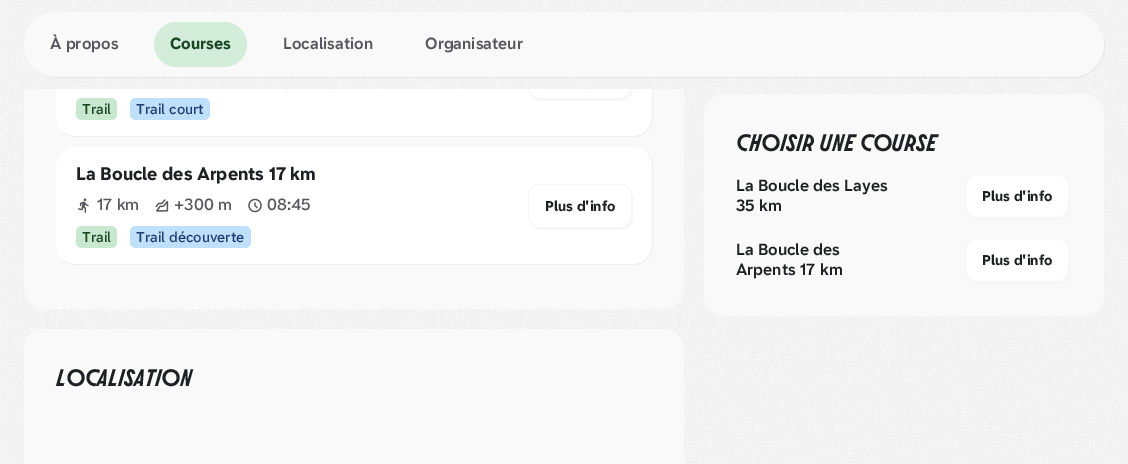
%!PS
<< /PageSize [1128 464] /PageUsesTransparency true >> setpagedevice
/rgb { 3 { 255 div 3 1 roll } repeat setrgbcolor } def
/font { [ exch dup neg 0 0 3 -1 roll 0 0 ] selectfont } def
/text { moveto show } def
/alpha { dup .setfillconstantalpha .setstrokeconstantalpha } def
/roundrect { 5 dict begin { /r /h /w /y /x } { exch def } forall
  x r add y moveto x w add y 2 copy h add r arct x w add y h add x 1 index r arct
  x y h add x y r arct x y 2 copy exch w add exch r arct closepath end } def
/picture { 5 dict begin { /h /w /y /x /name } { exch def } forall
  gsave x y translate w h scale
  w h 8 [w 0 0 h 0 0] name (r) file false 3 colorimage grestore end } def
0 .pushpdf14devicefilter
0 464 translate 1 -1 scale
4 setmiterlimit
246 246 246 rgb
0 0 1128 464 rectfill
(img_01.rgb) 0 0 1128 464 picture
249 249 249 rgb
24 -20 660 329 20 roundrect fill
237 237 237 rgb
62 131 moveto 4 4 9 6 15 6 rcurveto 556 0 rlineto 11 0 20 -9 20 -20 rcurveto 0 -77 rlineto 0 -6 -2 -11 -6 -15 rcurveto 3 4 5 9 5 14 rcurveto 0 77 rlineto 0 11 -9 20 -20 20 rcurveto -556 0 rlineto -5 0 -10 -2 -14 -5 rcurveto closepath fill
255 255 255 rgb
56 19 596 117 20 roundrect fill
246 246 246 rgb
530 93 moveto 2 5 6 8 11 8 rcurveto 80 0 rlineto 7 0 12 -5 12 -12 rcurveto 0 -20 rlineto 0 -2 -1 -4 -2 -6 rcurveto 1 4 rlineto 0 20 rlineto 0 7 -5 12 -12 12 rcurveto -80 0 rlineto -4 0 -8 -2 -10 -6 rcurveto closepath fill
255 255 255 rgb
528.5 55.5 103 43 11.5 roundrect gsave fill grestore
246 246 246 rgb
stroke
24 0 1080 89 rectfill
(img_02.rgb) 24 0 1080 89 picture
0.05 alpha
0 0 0 rgb
34 68 moveto 6 6 14 10 24 10 rcurveto 1014 0 rlineto 18 0 33 -15 33 -32 rcurveto 0 -10 -4 -18 -10 -24 rcurveto 6 6 9 14 9 22 rcurveto 0 18 -15 33 -32 33 rcurveto -1016 0 rlineto -8 0 -16 -3 -22 -9 rcurveto closepath fill
1 alpha
249 249 249 rgb
24 12 1080 65 32.5 roundrect fill
211 237 218 rgb
154 22 93 45 22.5 roundrect fill
200 232 208 rgb
76 98 41 22 6 roundrect fill
190 224 250 rgb
130 98 80 22 6 roundrect fill
237 237 237 rgb
62 259 moveto 4 4 9 6 15 6 rcurveto 556 0 rlineto 11 0 20 -9 20 -20 rcurveto 0 -77 rlineto 0 -6 -2 -11 -6 -15 rcurveto 3 4 5 9 5 14 rcurveto 0 77 rlineto 0 11 -9 20 -20 20 rcurveto -556 0 rlineto -5 0 -10 -2 -14 -5 rcurveto closepath fill
255 255 255 rgb
56 147 596 117 20 roundrect fill
(img_03.rgb) 78 198 11 15 picture
(img_04.rgb) 155 199 14 13 picture
(img_05.rgb) 248 198 14 15 picture
200 232 208 rgb
76 226 41 22 6 roundrect fill
190 224 250 rgb
130 226 121 22 6 roundrect fill
246 246 246 rgb
530 222 moveto 2 5 6 8 11 8 rcurveto 80 0 rlineto 7 0 12 -5 12 -12 rcurveto 0 -20 rlineto 0 -2 -1 -4 -2 -6 rcurveto 1 4 rlineto 0 20 rlineto 0 7 -5 12 -12 12 rcurveto -80 0 rlineto -4 0 -8 -2 -10 -6 rcurveto closepath fill
255 255 255 rgb
528.5 184.5 103 43 11.5 roundrect gsave fill grestore
246 246 246 rgb
stroke
249 249 249 rgb
24 329 660 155 20 roundrect fill
704 94 400 222 20 roundrect fill
246 246 246 rgb
967 212 moveto 2 5 6 8 11 8 rcurveto 80 0 rlineto 7 0 12 -5 12 -12 rcurveto 0 -20 rlineto 0 -2 -1 -4 -2 -6 rcurveto 1 4 rlineto 0 20 rlineto 0 7 -5 12 -12 12 rcurveto -80 0 rlineto -4 0 -8 -2 -10 -6 rcurveto closepath fill
255 255 255 rgb
965.5 174.5 103 43 11.5 roundrect gsave fill grestore
246 246 246 rgb
stroke
967 276 moveto 2 5 6 8 11 8 rcurveto 80 0 rlineto 7 0 12 -5 12 -12 rcurveto 0 -20 rlineto 0 -2 -1 -4 -2 -6 rcurveto 1 4 rlineto 0 20 rlineto 0 7 -5 12 -12 12 rcurveto -80 0 rlineto -4 0 -8 -2 -10 -6 rcurveto closepath fill
255 255 255 rgb
965.5 238.5 103 43 11.5 roundrect gsave fill grestore
246 246 246 rgb
stroke
/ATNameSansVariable-SemiBold 16 font
86 86 92 rgb
(À propos) 50 49 text
/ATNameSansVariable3-Bold 16 font
26 69 37 rgb
(Courses) 170 49 text
/ATNameSansVariable-SemiBold 16 font
86 86 92 rgb
(Localisation) 283 49 text
(Organisateur) 425 49 text
/ATNameSansVariable-Medium 14 font
26 69 37 rgb
(Trail) 82 114 text
33 60 114 rgb
(Trail court) 136 114 text
/ATNameSansVariable-Bold 18 font
31 32 36 rgb
(La Boucle des Arpents 17 km) 76 180 text
/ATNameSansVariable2-Medium 16 font
86 86 92 rgb
(17 km) 97 210 text
(+300 m) 174 210 text
(08:45) 267 210 text
/ATNameSansVariable-Medium 14 font
26 69 37 rgb
(Trail) 82 242 text
33 60 114 rgb
(Trail découverte) 136 242 text
/ATNameSansVariable2-Bold 14 font
31 32 36 rgb
(Plus d'info) 545 211 text
/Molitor-BoldItalic 22 font
(LOCALISATION) 56 386 text
(CHOISIR UNE COURSE) 736 151 text
/ATNameSansVariable-SemiBold 16 font
(La Boucle des Layes) 736 191 text
(35 km) 736 211 text
/ATNameSansVariable2-Bold 14 font
(Plus d'info) 982 201 text
/ATNameSansVariable-SemiBold 16 font
(La Boucle des) 736 255 text
(Arpents 17 km) 736 275 text
/ATNameSansVariable2-Bold 14 font
(Plus d'info) 982 265 text
.poppdf14devicefilter showpage
